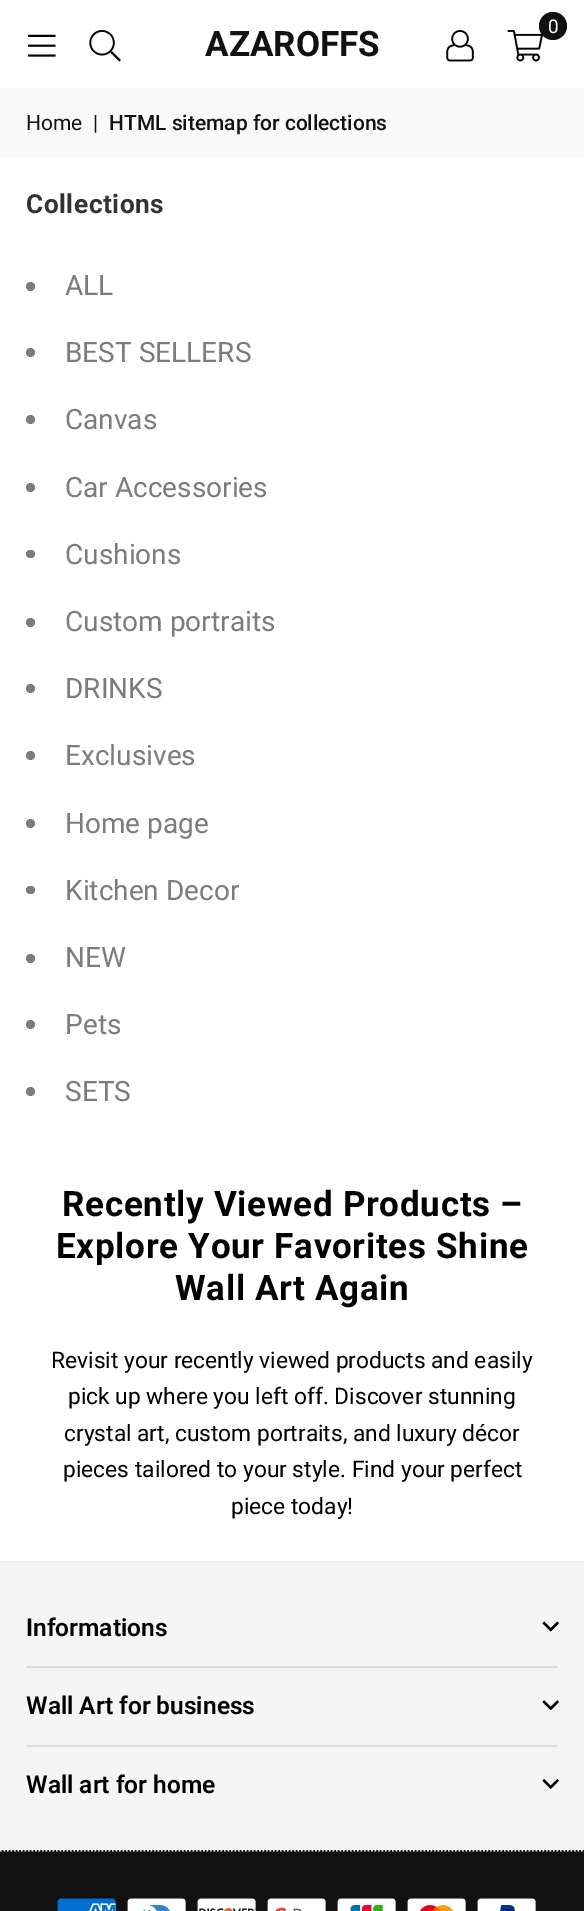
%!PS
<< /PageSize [584 1911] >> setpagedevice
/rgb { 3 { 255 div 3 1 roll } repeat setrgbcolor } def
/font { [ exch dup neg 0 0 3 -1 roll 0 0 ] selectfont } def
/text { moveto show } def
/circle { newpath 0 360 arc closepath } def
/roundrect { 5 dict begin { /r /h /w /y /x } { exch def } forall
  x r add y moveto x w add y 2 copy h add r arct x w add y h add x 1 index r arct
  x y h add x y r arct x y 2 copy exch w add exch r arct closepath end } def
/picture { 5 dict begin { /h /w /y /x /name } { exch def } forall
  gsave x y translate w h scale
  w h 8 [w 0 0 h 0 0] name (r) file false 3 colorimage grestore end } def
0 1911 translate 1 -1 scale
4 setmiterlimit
255 255 255 rgb
0 0 584 1911 rectfill
(img_01.rgb) 507 30 36 32 picture
17 17 17 rgb
553 26 14 circle fill
(img_02.rgb) 446 30 28 32 picture
(img_03.rgb) 28 34 28 23 picture
(img_04.rgb) 89 30 32 32 picture
249 249 249 rgb
0 88 584 70 rectfill
124 124 124 rgb
30.5 286.5 4.5 circle fill
30.5 352.5 4.5 circle fill
30.5 419.5 4.5 circle fill
30.5 487.5 4.5 circle fill
26 550 9 8 4 roundrect fill
30.5 622.5 4.5 circle fill
30.5 688.5 4.5 circle fill
30.5 755.5 4.5 circle fill
30.5 823.5 4.5 circle fill
26 886 9 8 4 roundrect fill
30.5 958.5 4.5 circle fill
30.5 1024.5 4.5 circle fill
30.5 1091.5 4.5 circle fill
245 245 245 rgb
0 1563 584 287 rectfill
238 238 238 rgb
0 1561 584 2 rectfill
(img_05.rgb) 542 1621 17 11 picture
222 222 222 rgb
26 1666 532 2 rectfill
(img_06.rgb) 542 1700 17 11 picture
26 1745 532 2 rectfill
(img_07.rgb) 542 1779 17 10 picture
17 17 17 rgb
0 1850 584 61 rectfill
238 238 238 rgb
1.8 setlinewidth
[1.75 1.75] 0 setdash
0 1850.5 moveto 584.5 0 rlineto stroke
(img_08.rgb) 57 1898 59 13 picture
(img_09.rgb) 127 1898 59 13 picture
(img_10.rgb) 197 1898 59 13 picture
(img_11.rgb) 267 1898 59 13 picture
(img_12.rgb) 337 1898 59 13 picture
(img_13.rgb) 407 1898 59 13 picture
(img_14.rgb) 477 1898 59 13 picture
/Roboto-Regular 19 font
255 255 255 rgb
(0) 548 33 text
/Roboto-Bold 35 font
17 17 17 rgb
(AZAROFFS) 205 56 text
/Roboto-Regular 21 font
(Home) 26 130 text
(|) 93 130 text
/Roboto-Medium 21 font
(HTML sitemap for collections) 109 130 text
/Roboto-Bold 26.25 font
51 51 51 rgb
26 213 moveto 0.5 0 (Collections) ashow
/Roboto-Regular 28 font
124 124 124 rgb
(ALL) 65 295 text
(BEST SELLERS) 65 362 text
(Canvas) 65 429 text
(Car Accessories) 65 497 text
(Cushions) 65 564 text
(Custom portraits) 65 631 text
(DRINKS) 65 698 text
(Exclusives) 65 765 text
(Home page) 65 833 text
(Kitchen Decor) 65 900 text
(NEW) 65 967 text
(Pets) 65 1034 text
(SETS) 65 1101 text
/Roboto-Bold 35 font
0 0 0 rgb
62 1216 moveto 0.7 0 (Recently Viewed Products –) ashow
56 1258 moveto 0.7 0 (Explore Your Favorites Shine) ashow
175 1300 moveto 0.7 0 (Wall Art Again) ashow
/Roboto-Regular 22.75 font
(Revisit your recently viewed products and easily) 51 1368 text
(pick up where you left off. Discover stunning) 68 1404 text
(crystal art, custom portraits, and luxury décor) 64 1441 text
(pieces tailored to your style. Find your perfect) 63 1477 text
(piece today!) 231 1514 text
/Roboto-SemiBold 24.5 font
(Informations) 26 1636 text
(Wall Art for business) 26 1714 text
(Wall art for home) 26 1793 text
showpage
